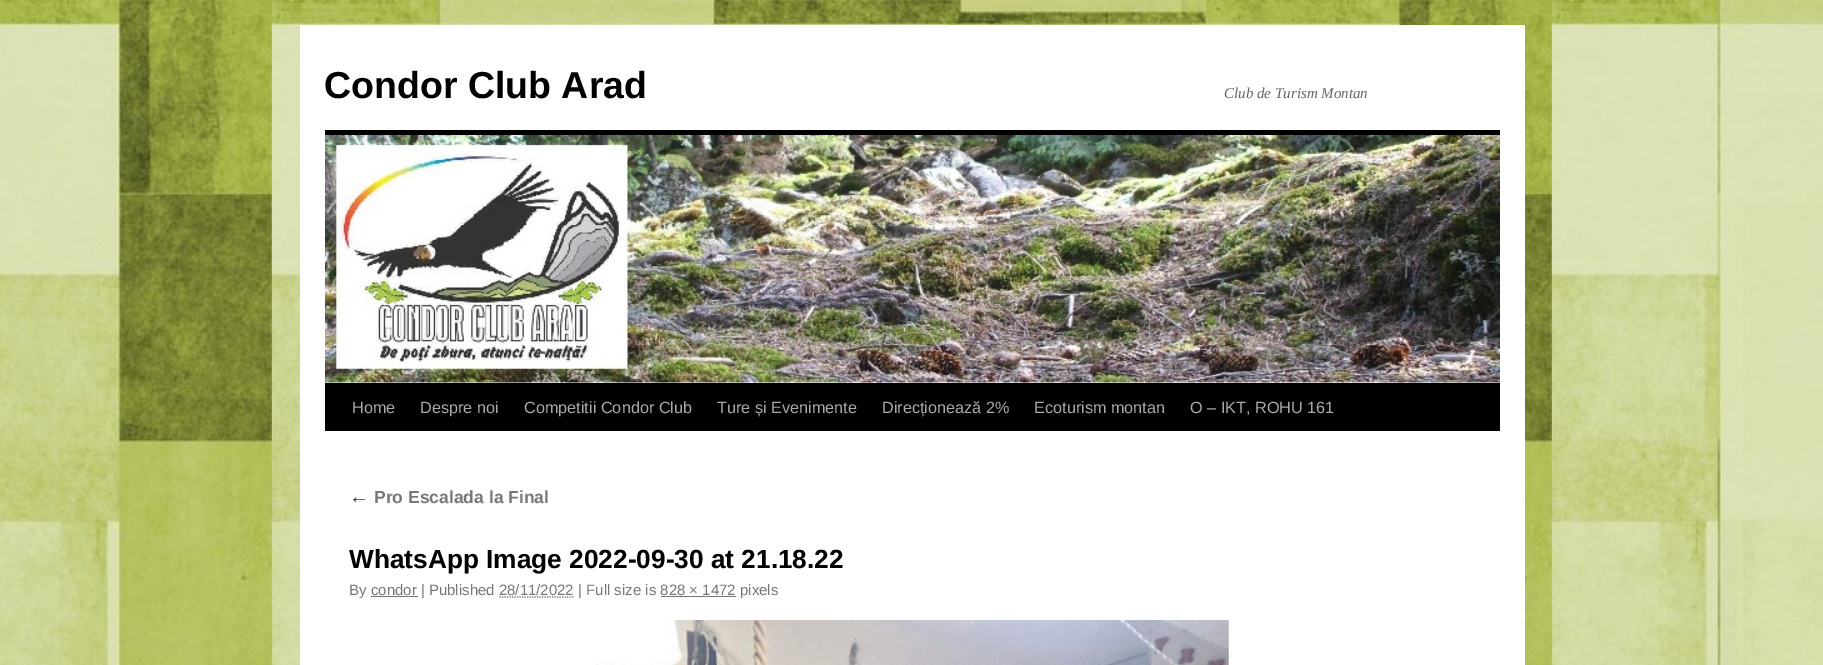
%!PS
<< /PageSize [1823 665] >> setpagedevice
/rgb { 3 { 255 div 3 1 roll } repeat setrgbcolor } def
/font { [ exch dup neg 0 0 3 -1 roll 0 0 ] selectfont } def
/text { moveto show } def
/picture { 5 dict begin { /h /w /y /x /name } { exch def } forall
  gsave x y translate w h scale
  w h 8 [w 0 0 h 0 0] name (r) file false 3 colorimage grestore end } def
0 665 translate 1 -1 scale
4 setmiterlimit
255 255 255 rgb
0 0 1823 665 rectfill
(img_01.rgb) 0 0 1823 665 picture
300 25 1225 640 rectfill
0 0 0 rgb
325 130 1175 5 rectfill
325 383 1175 48 rectfill
(img_02.rgb) 325 135 1175 248 picture
119 119 119 rgb
371 596 47 1 rectfill
1.2 setlinewidth
[1.25 1.25] 0 setdash
499.5 597 moveto 75 0 rlineto stroke
661 596 75 1 rectfill
(img_03.rgb) 596 620 633 45 picture
/LiberationSans-Bold 37.5 font
0 0 0 rgb
(Condor Club Arad) 324 98 text
/LiberationSerif-Italic 15 font
102 102 102 rgb
(Club de Turism Montan) 1224 98 text
/LiberationSans-Regular 16.25 font
170 170 170 rgb
(Home) 352 413 text
(Despre noi) 420 413 text
(Competitii Condor Club) 524 413 text
(Ture și Evenimente) 717 413 text
(Direcționează 2%) 882 413 text
(Ecoturism montan) 1034 413 text
(O – IKT, ROHU 161) 1190 413 text
/LiberationSerif-Italic 20 font
51 51 51 rgb
(←) 349 503 text
/LiberationSans-Bold 17.5 font
119 119 119 rgb
(Pro Escalada la Final) 374 503 text
/LiberationSans-Bold 26.25 font
0 0 0 rgb
(WhatsApp Image 2022-09-30 at 21.18.22) 349 568 text
/LiberationSans-Regular 15 font
119 119 119 rgb
(By condor | Published 28/11/2022 | Full size is 828 × 1472 pixels) 349 595 text
showpage
